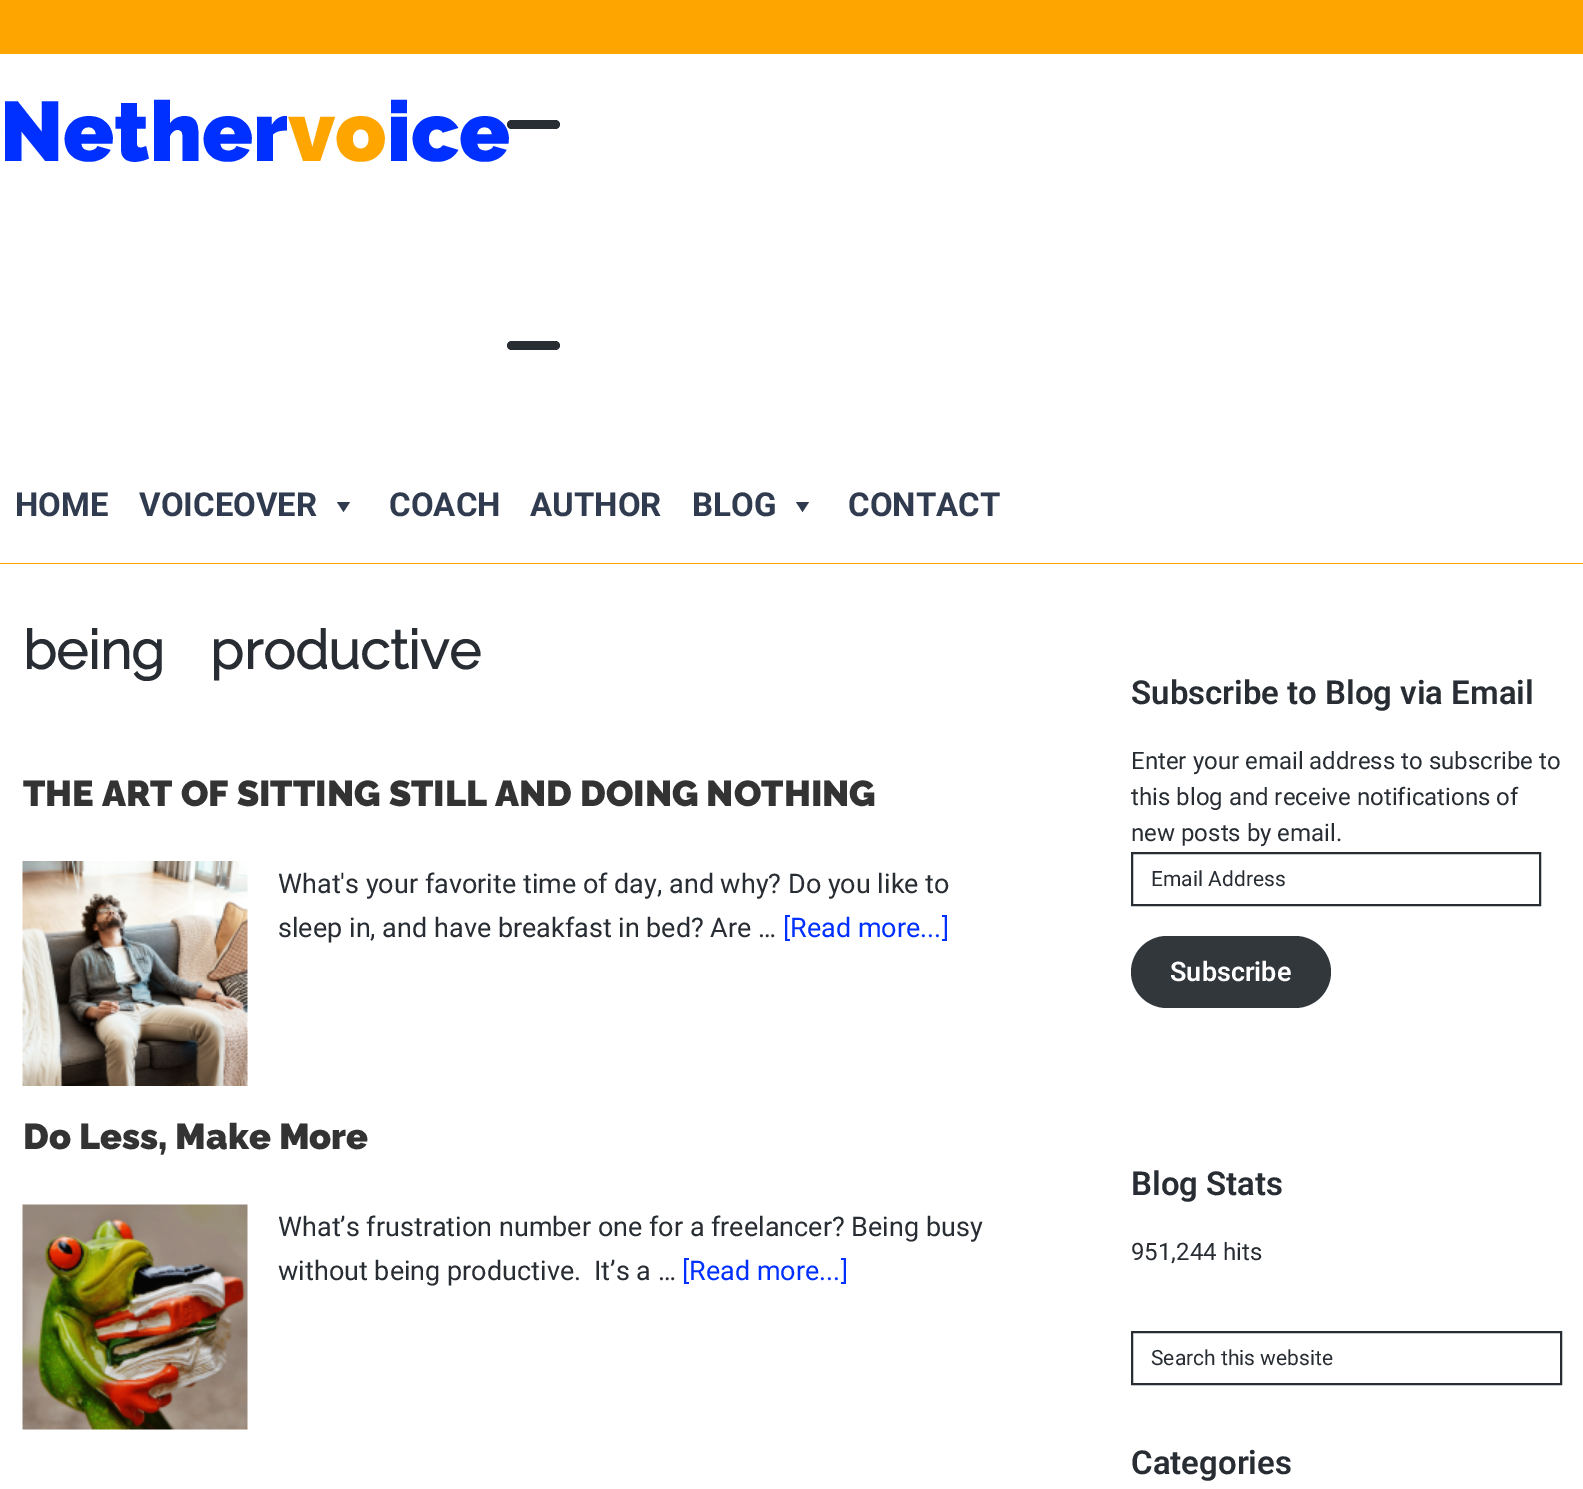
%!PS
<< /PageSize [1583 1489] >> setpagedevice
/rgb { 3 { 255 div 3 1 roll } repeat setrgbcolor } def
/font { [ exch dup neg 0 0 3 -1 roll 0 0 ] selectfont } def
/text { moveto show } def
/roundrect { 5 dict begin { /r /h /w /y /x } { exch def } forall
  x r add y moveto x w add y 2 copy h add r arct x w add y h add x 1 index r arct
  x y h add x y r arct x y 2 copy exch w add exch r arct closepath end } def
/picture { 5 dict begin { /h /w /y /x /name } { exch def } forall
  gsave x y translate w h scale
  w h 8 [w 0 0 h 0 0] name (r) file false 3 colorimage grestore end } def
0 1489 translate 1 -1 scale
4 setmiterlimit
255 165 0 rgb
0 0 1583 1489 rectfill
255 255 255 rgb
0 54 1583 509 rectfill
40 45 51 rgb
507 341 53 9 4.5 roundrect fill
49 59 79 rgb
350 502 moveto -6.5 10 rlineto -6.5 -10 rlineto closepath fill
809 502 moveto -6.5 10 rlineto -6.5 -10 rlineto closepath fill
255 255 255 rgb
0 564 1583 925 rectfill
(img_01.rgb) 22 861 226 225 picture
(img_02.rgb) 22 1204 226 226 picture
40 45 51 rgb
2 setlinewidth
1132 853 408 52 rectstroke
50 55 60 rgb
1131 936 200 72 36 roundrect fill
40 45 51 rgb
1132 1332 429 52 rectstroke
/Raleway-Black 84 font
0 48 255 rgb
(Nether) 0 161 text
255 165 0 rgb
(vo) 288 161 text
0 48 255 rgb
(ice) 387 161 text
40 45 51 rgb
507 120 53 9 4.5 roundrect fill
/Roboto-Bold 33 font
49 59 79 rgb
(HOME) 15 516 text
(VOICEOVER) 139 516 text
(COACH) 389 516 text
(AUTHOR) 530 516 text
(BLOG) 692 516 text
(CONTACT) 848 516 text
/Raleway-Bold 54 font
40 45 51 rgb
23 669 moveto 32 0 32 (being productive) widthshow
/Raleway-Black 36 font
51 51 51 rgb
(THE ART OF SITTING STILL AND DOING NOTHING) 23 806 text
/Roboto-Regular 27 font
40 45 51 rgb
(What's your favorite time of day, and why? Do you like to) 278 893 text
(sleep in, and have breakfast in bed? Are …) 278 937 text
0 48 255 rgb
([Read more...]) 783 937 text
/Raleway-Black 36 font
51 51 51 rgb
(Do Less, Make More) 23 1149 text
/Roboto-Regular 27 font
40 45 51 rgb
(What’s frustration number one for a freelancer? Being busy) 278 1236 text
(without being productive.) 278 1280 text
(It’s a …) 594 1280 text
0 48 255 rgb
([Read more...]) 682 1280 text
/Roboto-SemiBold 33 font
40 45 51 rgb
(Subscribe to Blog via Email) 1131 704 text
/Roboto-Regular 24 font
(Enter your email address to subscribe to) 1131 769 text
(this blog and receive notifications of) 1131 805 text
(new posts by email.) 1131 841 text
/Roboto-Regular 21 font
(Email Address) 1151 886 text
/Roboto-SemiBold 27 font
255 255 255 rgb
(Subscribe) 1170 981 text
/Roboto-SemiBold 33 font
40 45 51 rgb
(Blog Stats) 1131 1195 text
/Roboto-Regular 24 font
(951,244 hits) 1131 1260 text
/Roboto-Regular 21 font
(Search this website) 1151 1365 text
/Roboto-SemiBold 33 font
(Categories) 1131 1474 text
showpage
